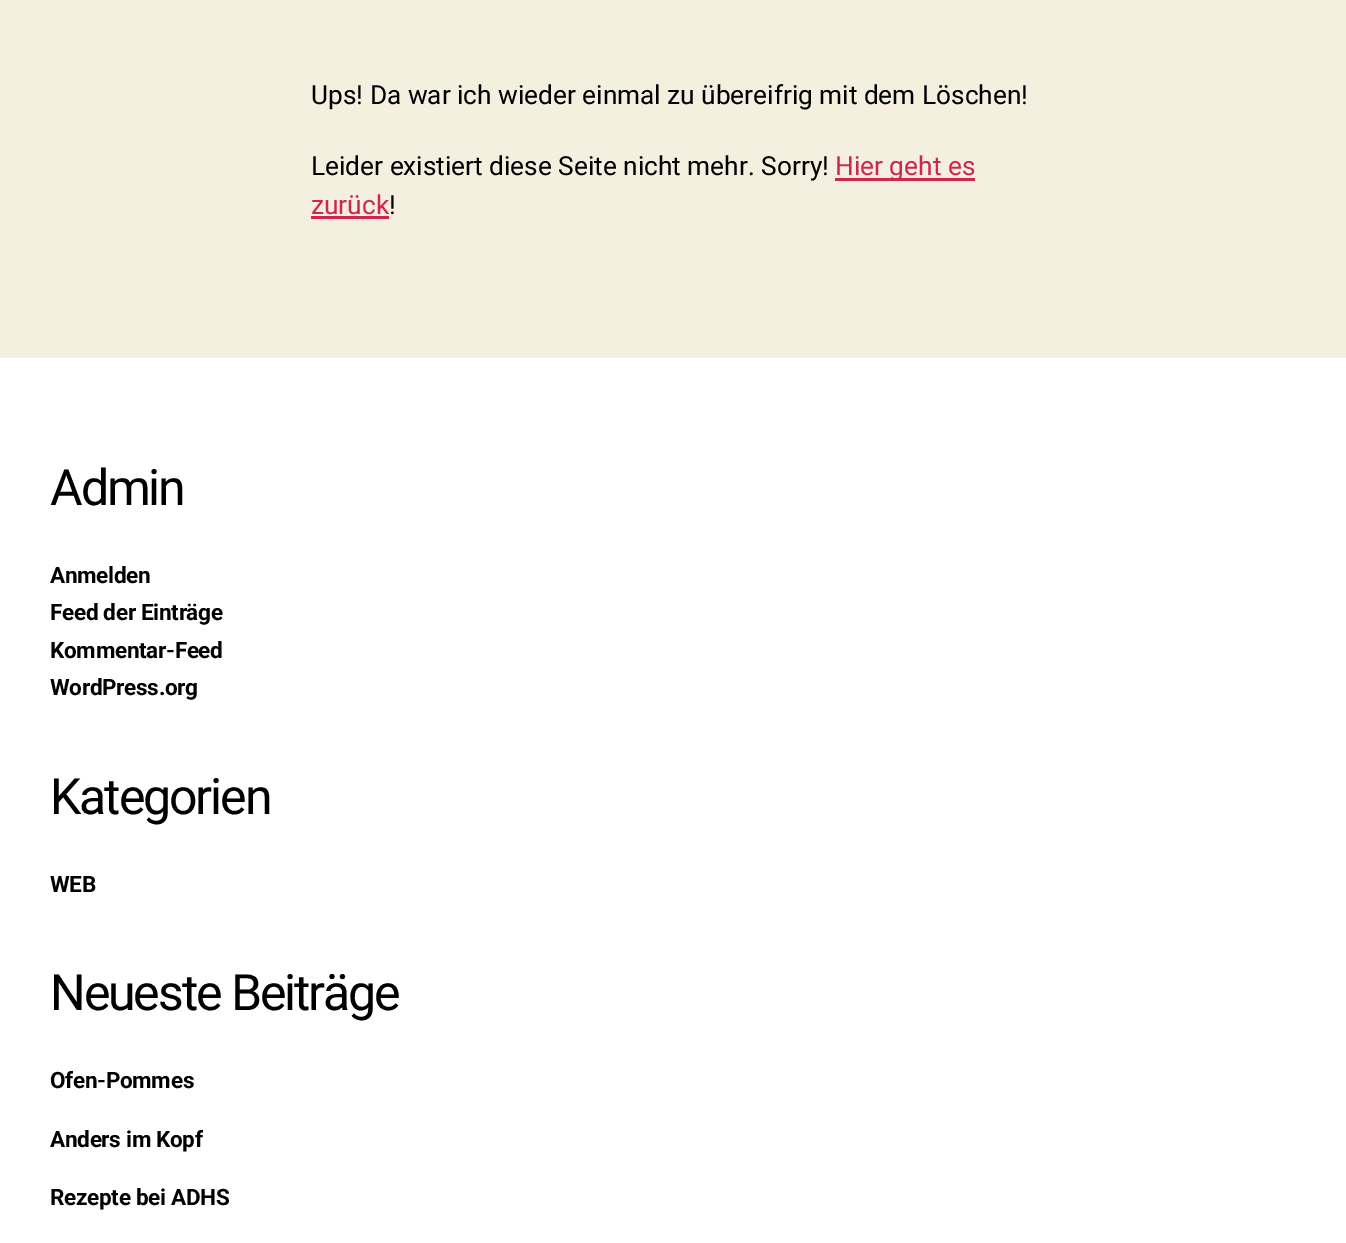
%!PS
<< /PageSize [1346 1243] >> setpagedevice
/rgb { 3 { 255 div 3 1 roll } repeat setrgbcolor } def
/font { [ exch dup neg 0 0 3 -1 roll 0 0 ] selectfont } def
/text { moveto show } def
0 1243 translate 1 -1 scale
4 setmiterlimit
245 239 224 rgb
0 0 1346 1243 rectfill
205 38 83 rgb
835 178 140 3 rectfill
311 216 78 3 rectfill
255 255 255 rgb
0 358 1346 885 rectfill
/Roboto-Regular 26.25 font
0 0 0 rgb
(Ups! Da war ich wieder einmal zu übereifrig mit dem Löschen!) 311 104 text
(Leider existiert diese Seite nicht mehr. Sorry!) 311 175 text
205 38 83 rgb
(Hier geht es) 835 175 text
(zurück) 311 214 text
0 0 0 rgb
(!) 389 214 text
/Roboto-Regular 50 font
50 505 moveto -2.1 0 (Admin) ashow
/Roboto-Bold 22.5 font
50 583 moveto -0.3 0 (Anmelden) ashow
50 620 moveto -0.3 0 (Feed der Einträge) ashow
50 658 moveto -0.3 0 (Kommentar-Feed) ashow
50 695 moveto -0.3 0 (WordPress.org) ashow
/Roboto-Regular 50 font
50 814 moveto -2.1 0 (Kategorien) ashow
/Roboto-Bold 22.5 font
50 892 moveto -0.3 0 (WEB) ashow
/Roboto-Regular 50 font
50 1010 moveto -2.1 0 (Neueste Beiträge) ashow
/Roboto-Bold 22.5 font
50 1088 moveto -0.3 0 (Ofen-Pommes) ashow
50 1147 moveto -0.3 0 (Anders im Kopf) ashow
50 1205 moveto -0.3 0 (Rezepte bei ADHS) ashow
showpage
